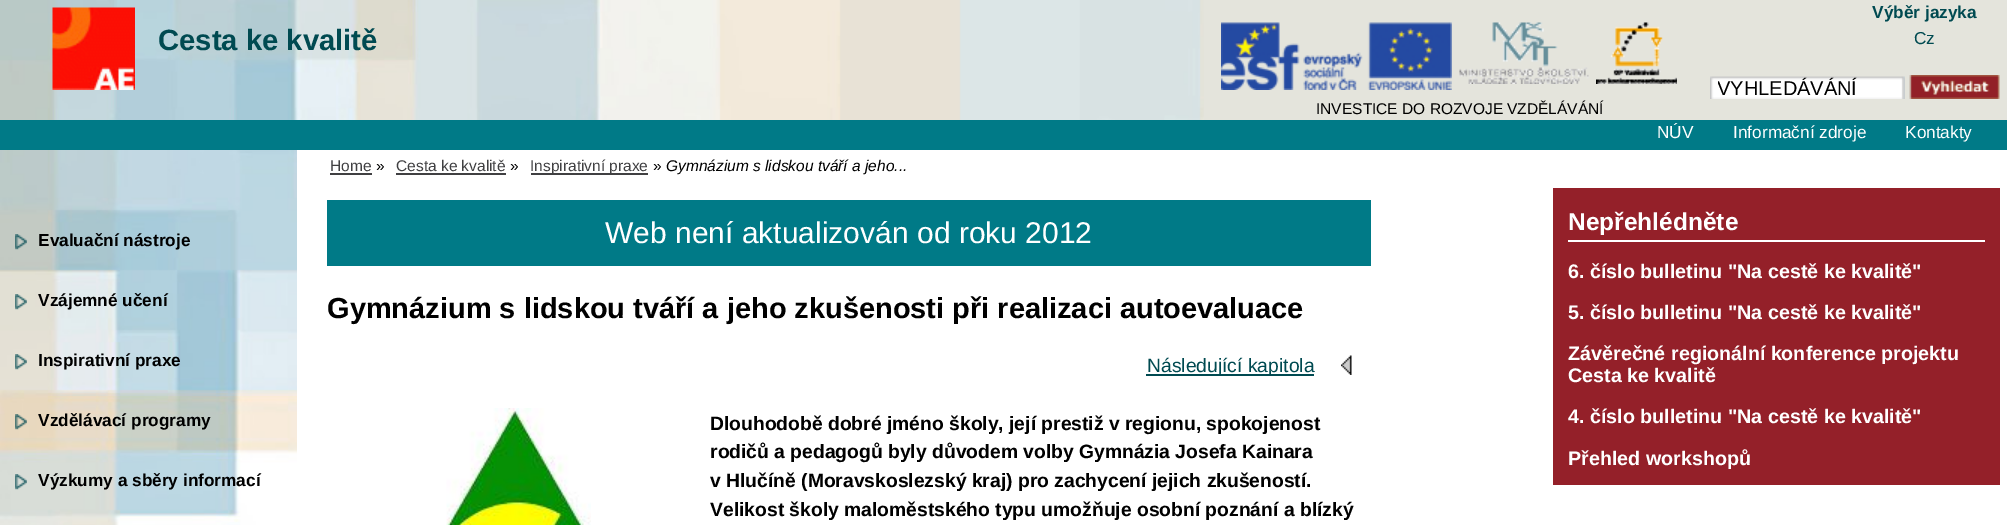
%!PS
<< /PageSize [2007 525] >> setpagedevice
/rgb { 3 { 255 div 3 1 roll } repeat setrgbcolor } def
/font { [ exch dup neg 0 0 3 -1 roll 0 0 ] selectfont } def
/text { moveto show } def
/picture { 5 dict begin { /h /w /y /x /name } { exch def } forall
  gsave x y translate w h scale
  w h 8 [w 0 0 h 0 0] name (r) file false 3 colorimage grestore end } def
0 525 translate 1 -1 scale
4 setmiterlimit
255 255 255 rgb
0 0 2007 525 rectfill
228 228 220 rgb
1204 0 803 120 rectfill
(img_01.rgb) 1221 22 231 68 picture
(img_02.rgb) 1459 22 130 62 picture
(img_03.rgb) 1596 22 81 62 picture
(img_04.rgb) 0 0 1204 120 picture
(img_05.rgb) 52 7 83 83 picture
255 255 255 rgb
1712 79 191 19 rectfill
(img_06.rgb) 1710 76 195 23 picture
(img_07.rgb) 1909 75 91 24 picture
0 122 135 rgb
0 120 2007 30 rectfill
64 64 66 rgb
330 173 42 2 rectfill
396 173 110 2 rectfill
531 173 117 2 rectfill
(img_08.rgb) 0 150 297 375 picture
(img_09.rgb) 15 234 12 16 picture
(img_10.rgb) 15 294 12 16 picture
(img_11.rgb) 15 354 12 16 picture
(img_12.rgb) 15 414 12 16 picture
(img_13.rgb) 15 474 12 16 picture
0 122 135 rgb
327 200 1044 66 rectfill
(img_14.rgb) 1341 355 11 20 picture
0 74 81 rgb
1146 374 168 2 rectfill
(img_15.rgb) 446 408 145 117 picture
148 32 41 rgb
1553 188 447 297 rectfill
255 255 255 rgb
1568 240 417 2 rectfill
/LiberationSans-Bold 17.25 font
0 74 81 rgb
(Výběr jazyka) 1872 18 text
/LiberationSans-Regular 17.25 font
(Cz) 1914 44 text
/LiberationSans-Bold 29.25 font
(Cesta ke kvalitě) 158 50 text
gsave
1718 77 187 22 rectclip
/LiberationSans-Regular 20 font
0 0 0 rgb
(VYHLEDÁVÁNÍ) 1717 95 text
grestore
/LiberationSans-Regular 17.25 font
255 255 255 rgb
(NÚV) 1657 138 text
(Informační zdroje) 1733 138 text
(Kontakty) 1905 138 text
/LiberationSans-Regular 15.5 font
0 0 0 rgb
(INVESTICE DO ROZVOJE VZDĚLÁVÁNÍ) 1316 114 text
64 64 66 rgb
(Home) 330 171 text
0 0 0 rgb
(») 376 171 text
64 64 66 rgb
(Cesta ke kvalitě) 396 171 text
0 0 0 rgb
(») 510 171 text
64 64 66 rgb
(Inspirativní praxe) 530 171 text
0 0 0 rgb
(») 653 171 text
/LiberationSans-Italic 15.5 font
(Gymnázium s lidskou tváří a jeho...) 666 171 text
/LiberationSans-Bold 17.25 font
(Evaluační nástroje) 38 246 text
(Vzájemné učení) 38 306 text
(Inspirativní praxe) 38 366 text
(Vzdělávací programy) 38 426 text
(Výzkumy a sběry informací) 38 486 text
/LiberationSans-Regular 30 font
255 255 255 rgb
(Web není aktualizován od roku 2012) 605 243 text
/LiberationSans-Bold 29 font
0 0 0 rgb
(Gymnázium s lidskou tváří a jeho zkušenosti při realizaci autoevaluace) 327 318 text
/LiberationSans-Regular 19.3 font
0 74 81 rgb
(Následující kapitola) 1147 372 text
/LiberationSans-Bold 19.3 font
0 0 0 rgb
(Dlouhodobě dobré jméno školy, její prestiž v regionu, spokojenost) 710 430 text
(rodičů a pedagogů byly důvodem volby Gymnázia Josefa Kainara) 710 458 text
(v Hlučíně \(Moravskoslezský kraj\) pro zachycení jejich zkušeností.) 710 487 text
(Velikost školy maloměstského typu umožňuje osobní poznání a blízký) 710 516 text
/LiberationSans-Bold 24.5 font
255 255 255 rgb
(Nepřehlédněte) 1568 230 text
/LiberationSans-Bold 19.7 font
(6. číslo bulletinu "Na cestě ke kvalitě") 1568 278 text
(5. číslo bulletinu "Na cestě ke kvalitě") 1568 319 text
(Závěrečné regionální konference projektu) 1568 360 text
(Cesta ke kvalitě) 1568 382 text
(4. číslo bulletinu "Na cestě ke kvalitě") 1568 423 text
(Přehled workshopů) 1568 465 text
showpage
